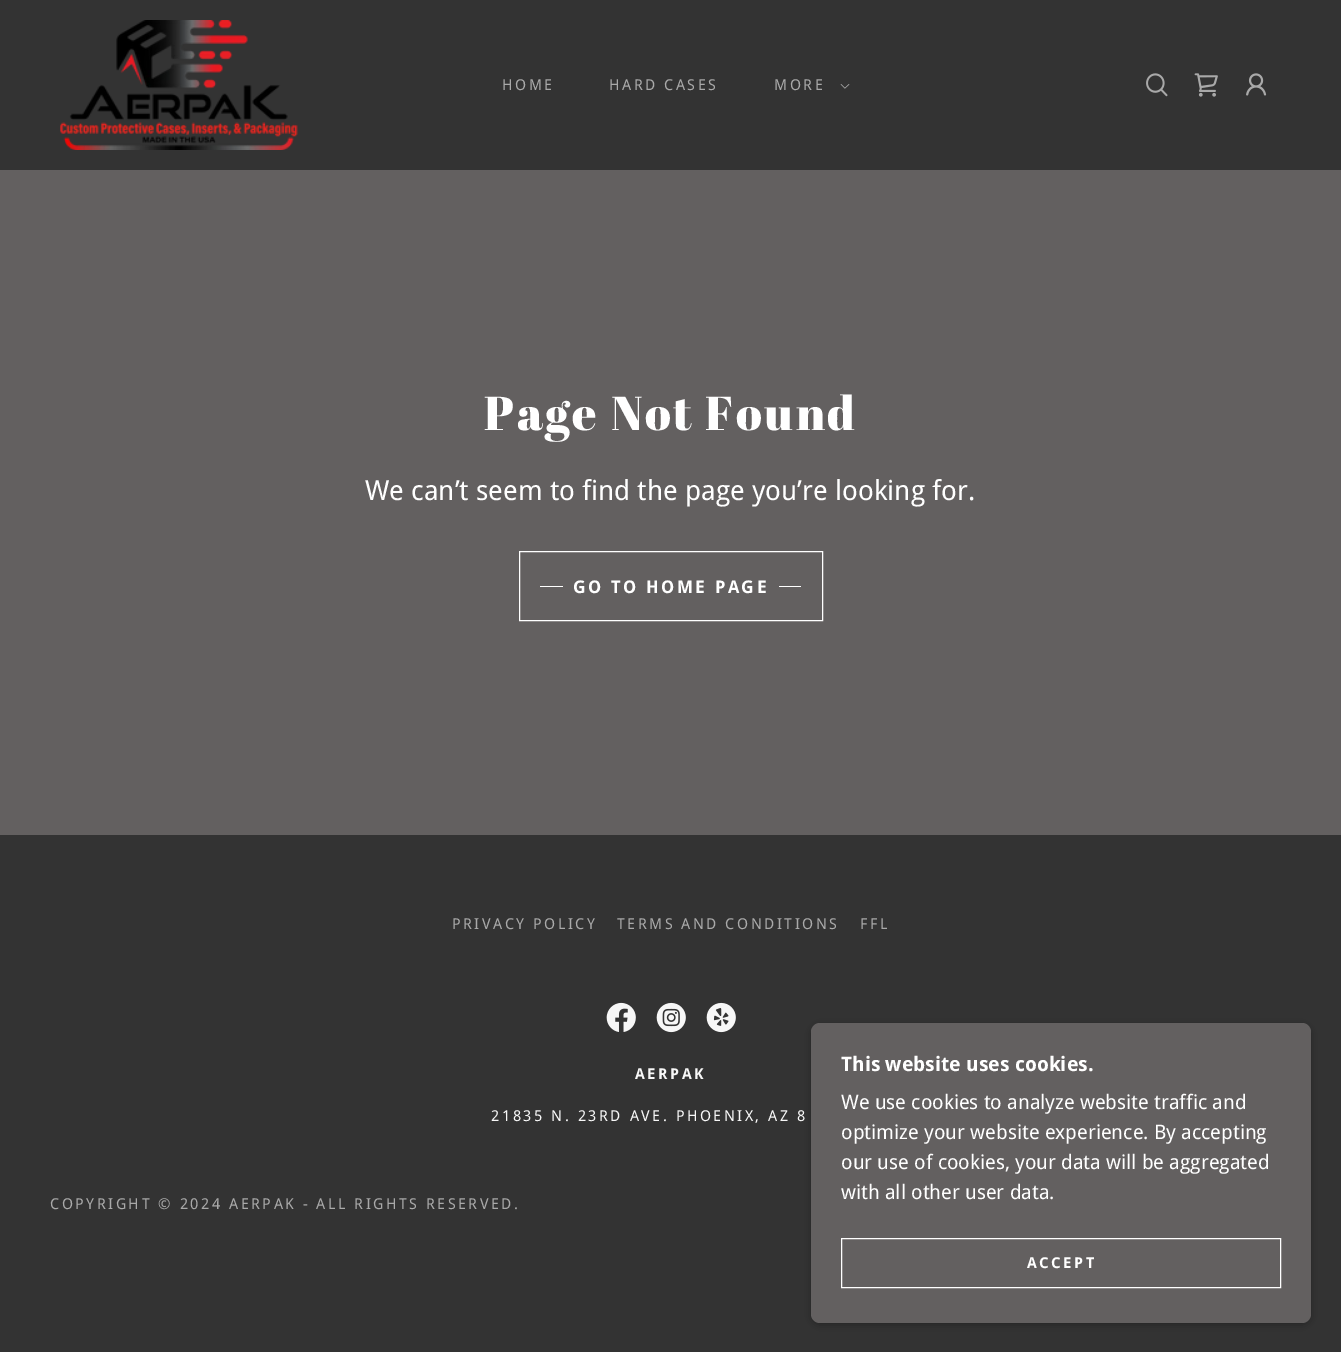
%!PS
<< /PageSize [1341 1352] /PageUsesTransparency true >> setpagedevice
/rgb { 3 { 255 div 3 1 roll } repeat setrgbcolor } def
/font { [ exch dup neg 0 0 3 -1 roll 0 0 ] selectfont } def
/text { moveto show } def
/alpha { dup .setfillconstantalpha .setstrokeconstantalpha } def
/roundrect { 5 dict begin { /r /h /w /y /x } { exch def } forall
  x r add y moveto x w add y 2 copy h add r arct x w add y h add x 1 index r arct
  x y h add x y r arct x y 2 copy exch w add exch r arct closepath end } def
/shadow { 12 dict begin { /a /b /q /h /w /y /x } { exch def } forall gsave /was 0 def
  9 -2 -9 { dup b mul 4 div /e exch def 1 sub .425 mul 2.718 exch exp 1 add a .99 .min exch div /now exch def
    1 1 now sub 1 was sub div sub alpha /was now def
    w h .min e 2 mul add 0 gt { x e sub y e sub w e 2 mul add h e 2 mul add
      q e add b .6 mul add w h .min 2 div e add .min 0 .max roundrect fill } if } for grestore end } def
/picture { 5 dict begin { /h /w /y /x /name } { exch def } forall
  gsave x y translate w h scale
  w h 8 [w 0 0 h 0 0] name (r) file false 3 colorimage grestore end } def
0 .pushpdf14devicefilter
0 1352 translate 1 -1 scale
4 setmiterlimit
51 51 51 rgb
0 0 1341 1352 rectfill
(img_01.rgb) 60 20 238 130 picture
(img_02.rgb) 840 84 10 5 picture
(img_03.rgb) 1146 73 22 24 picture
(img_04.rgb) 1194 73 24 24 picture
(img_05.rgb) 1246 73 21 23 picture
99 96 96 rgb
0 170 1341 665 rectfill
255 255 255 rgb
519.5 551.5 303 69 rectstroke
540 586 23 1 rectfill
779 586 22 1 rectfill
(img_06.rgb) 606 1002 30 30 picture
(img_07.rgb) 656 1002 30 31 picture
(img_08.rgb) 706 1002 30 31 picture
0 0 0 rgb
811 1025 500 300 9 4 0.3 shadow
99 96 96 rgb
811 1023 500 300 9 roundrect fill
255 255 255 rgb
841.5 1238.5 439 49 rectstroke
/DroidSans-Regular 15 font
169 169 169 rgb
502 90 moveto 2.5 0 (HOME) ashow
609 90 moveto 2.5 0 (HARD CASES) ashow
774 90 moveto 2.5 0 (MORE) ashow
/AbrilFatface-Regular 47.5 font
255 255 255 rgb
484 430 moveto 2.5 0 (Page Not Found) ashow
/DroidSans-Regular 27.5 font
(We can’t seem to find the page you’re looking for.) 365 500 text
/DroidSans-Bold 17.5 font
573 593 moveto 2.5 0 (GO TO HOME PAGE) ashow
/DroidSans-Regular 15 font
169 169 169 rgb
452 929 moveto 2.5 0 (PRIVACY POLICY) ashow
617 929 moveto 2.5 0 (TERMS AND CONDITIONS) ashow
860 929 moveto 2.5 0 (FFL) ashow
/DroidSans-Bold 15 font
247 247 247 rgb
635 1079 moveto 2.5 0 (AERPAK) ashow
/DroidSans-Regular 15 font
491 1121 moveto 2.5 0 (21835 N. 23RD AVE. PHOENIX, AZ 8) ashow
169 169 169 rgb
50 1209 moveto 2.5 0 (COPYRIGHT © 2024 AERPAK - ALL RIGHTS RESERVED.) ashow
/DroidSans-Bold 20 font
255 255 255 rgb
(This website uses cookies.) 841 1071 text
/DroidSans-Regular 20 font
(We use cookies to analyze website traffic and) 841 1109 text
(optimize your website experience. By accepting) 841 1139 text
(our use of cookies, your data will be aggregated) 841 1169 text
(with all other user data.) 841 1199 text
/DroidSans-Bold 15 font
1027 1268 moveto 2.5 0 (ACCEPT) ashow
.poppdf14devicefilter showpage
